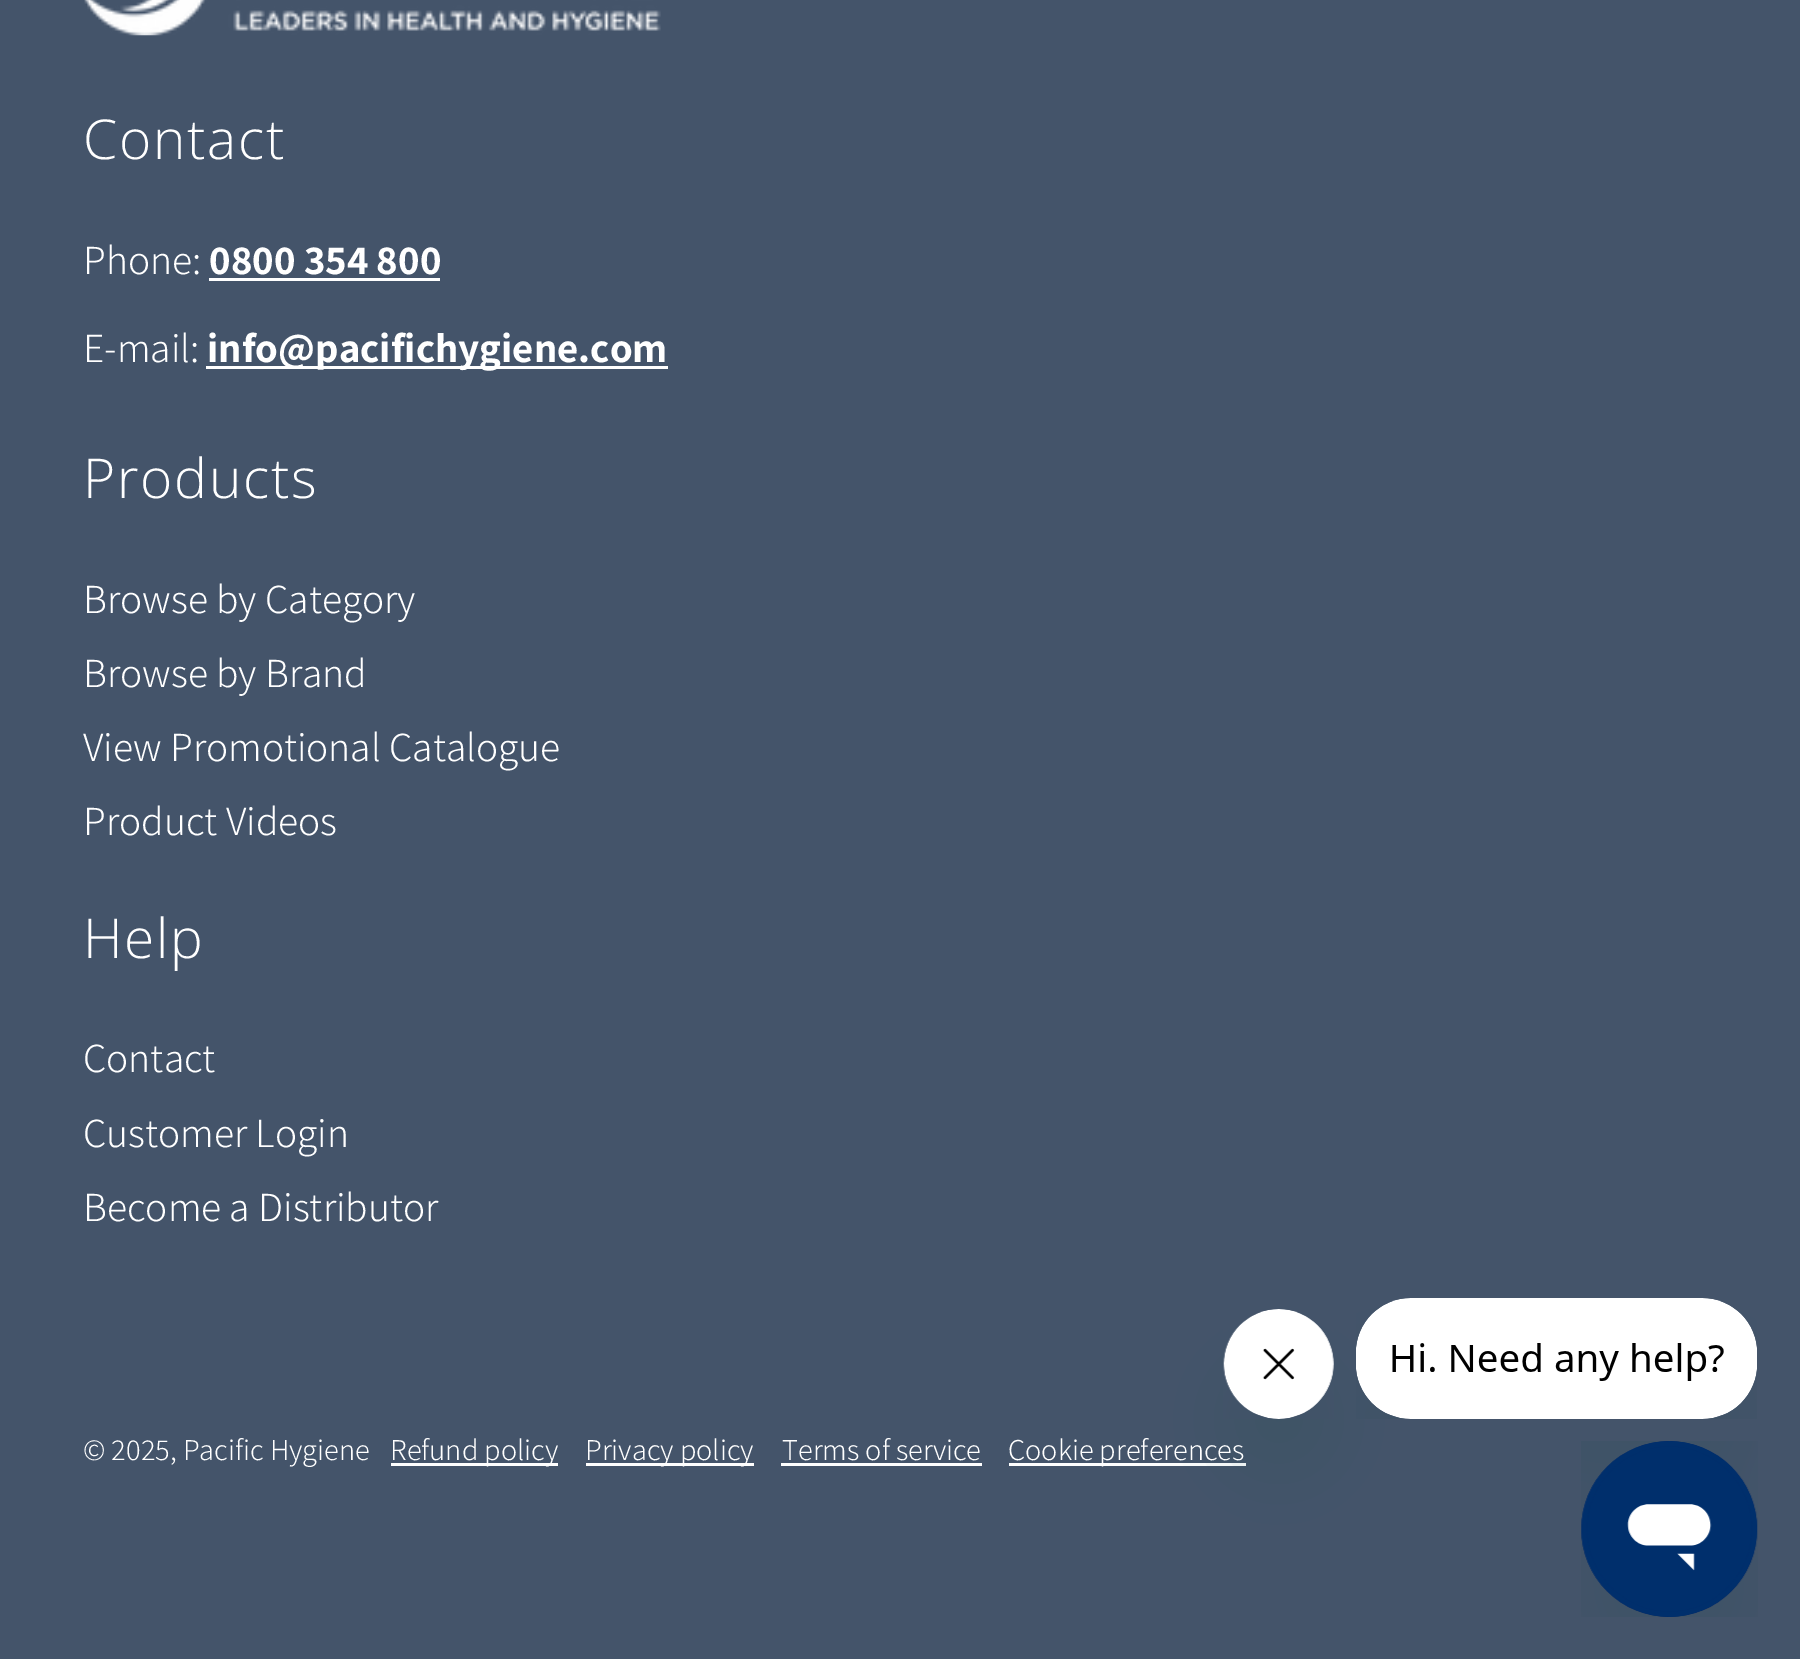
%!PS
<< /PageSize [1800 1659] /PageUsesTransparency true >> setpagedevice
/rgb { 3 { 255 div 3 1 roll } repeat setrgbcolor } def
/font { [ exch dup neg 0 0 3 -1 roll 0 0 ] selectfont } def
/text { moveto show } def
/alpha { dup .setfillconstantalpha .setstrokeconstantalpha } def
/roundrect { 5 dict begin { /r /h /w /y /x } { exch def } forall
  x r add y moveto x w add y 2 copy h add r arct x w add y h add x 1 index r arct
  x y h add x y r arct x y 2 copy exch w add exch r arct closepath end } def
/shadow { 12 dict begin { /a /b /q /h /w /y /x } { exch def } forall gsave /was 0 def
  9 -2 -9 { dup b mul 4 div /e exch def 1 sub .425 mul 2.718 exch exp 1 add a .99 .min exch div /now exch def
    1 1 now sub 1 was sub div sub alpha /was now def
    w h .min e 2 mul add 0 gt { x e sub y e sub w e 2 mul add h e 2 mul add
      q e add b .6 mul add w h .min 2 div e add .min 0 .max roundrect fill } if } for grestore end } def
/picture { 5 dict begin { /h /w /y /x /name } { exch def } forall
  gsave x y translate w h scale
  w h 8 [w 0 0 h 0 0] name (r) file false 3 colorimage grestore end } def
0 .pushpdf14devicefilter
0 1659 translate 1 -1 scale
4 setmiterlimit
68 84 106 rgb
0 0 1800 1659 rectfill
(img_01.rgb) 84 0 577 36 picture
255 255 255 rgb
209 278 231 3 rectfill
206 366 462 3 rectfill
391 1463 167 3 rectfill
586 1463 168 3 rectfill
781 1463 201 3 rectfill
1009 1463 237 3 rectfill
23 73 77 rgb
1224 1364 110 110 55 41 0.15 shadow
(img_02.rgb) 1223 1309 111 110 picture
(img_03.rgb) 1356 1298 401 121 picture
(img_04.rgb) 1581 1441 177 176 picture
/OpenSans-Light 55 font
255 255 255 rgb
83 159 moveto 1.75 0 (Contact) ashow
/Assistant-Light 41.25 font
(Phone:) 83 274 text
/Assistant-Bold 41.25 font
(0800 354 800) 209 274 text
/Assistant-Light 41.25 font
(E-mail:) 83 362 text
/Assistant-Bold 41.25 font
(info@pacifichygiene.com) 207 362 text
/OpenSans-Light 55 font
83 498 moveto 1.75 0 (Products) ashow
/Assistant-Light 41.25 font
(Browse by Category) 83 613 text
(Browse by Brand) 83 687 text
(View Promotional Catalogue) 83 761 text
(Product Videos) 83 835 text
/OpenSans-Light 55 font
83 958 moveto 1.75 0 (Help) ashow
/Assistant-Light 41.25 font
(Contact) 83 1072 text
(Customer Login) 83 1147 text
(Become a Distributor) 83 1221 text
/Assistant-Light 30.25 font
(© 2025, Pacific Hygiene) 83 1460 text
(Refund policy) 390 1460 text
(Privacy policy) 585 1460 text
(Terms of service) 782 1460 text
(Cookie preferences) 1008 1460 text
.poppdf14devicefilter showpage
